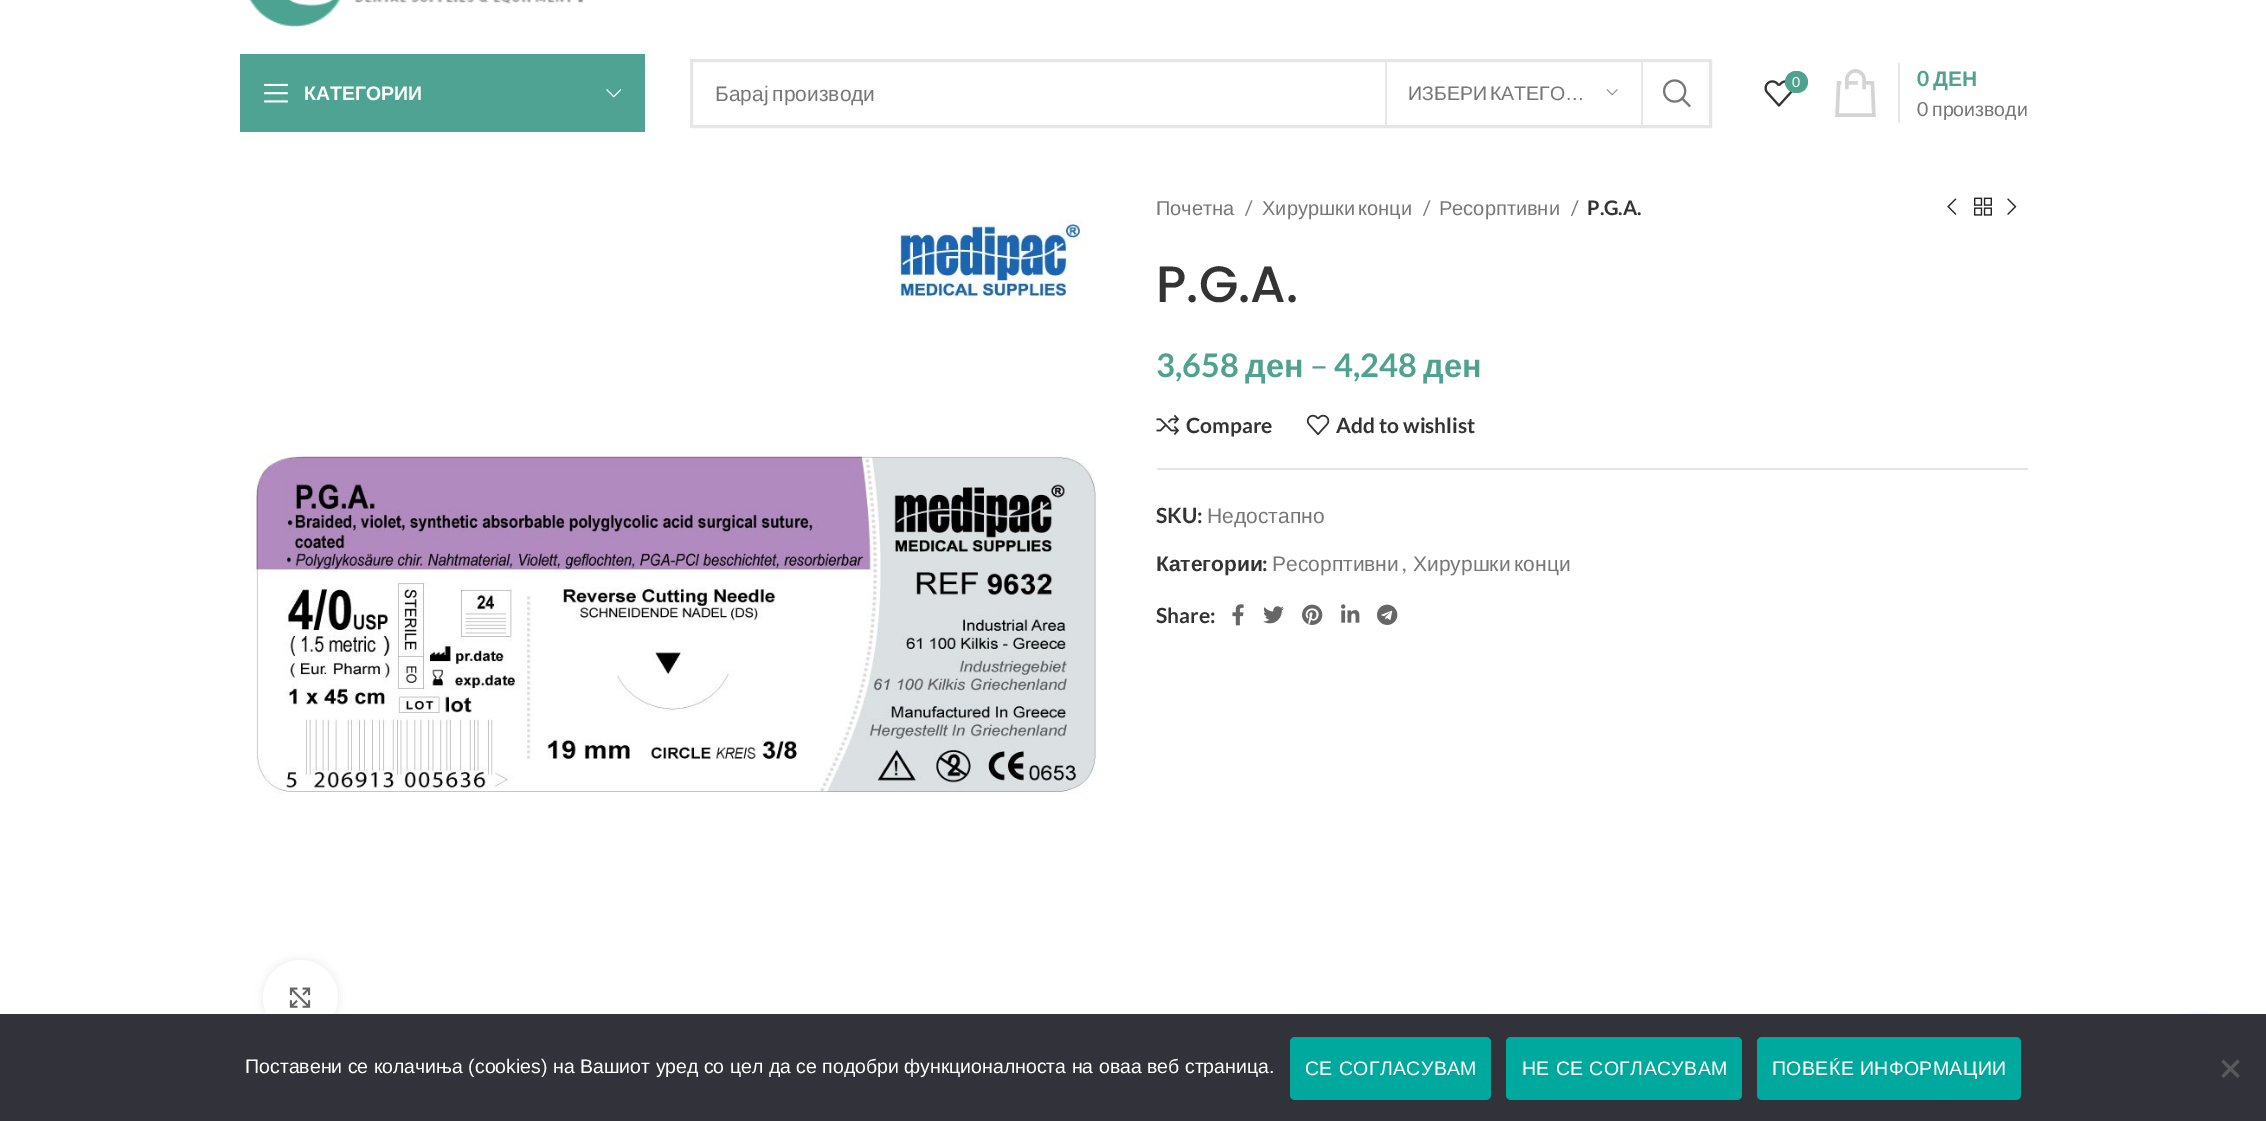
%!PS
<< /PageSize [2266 1121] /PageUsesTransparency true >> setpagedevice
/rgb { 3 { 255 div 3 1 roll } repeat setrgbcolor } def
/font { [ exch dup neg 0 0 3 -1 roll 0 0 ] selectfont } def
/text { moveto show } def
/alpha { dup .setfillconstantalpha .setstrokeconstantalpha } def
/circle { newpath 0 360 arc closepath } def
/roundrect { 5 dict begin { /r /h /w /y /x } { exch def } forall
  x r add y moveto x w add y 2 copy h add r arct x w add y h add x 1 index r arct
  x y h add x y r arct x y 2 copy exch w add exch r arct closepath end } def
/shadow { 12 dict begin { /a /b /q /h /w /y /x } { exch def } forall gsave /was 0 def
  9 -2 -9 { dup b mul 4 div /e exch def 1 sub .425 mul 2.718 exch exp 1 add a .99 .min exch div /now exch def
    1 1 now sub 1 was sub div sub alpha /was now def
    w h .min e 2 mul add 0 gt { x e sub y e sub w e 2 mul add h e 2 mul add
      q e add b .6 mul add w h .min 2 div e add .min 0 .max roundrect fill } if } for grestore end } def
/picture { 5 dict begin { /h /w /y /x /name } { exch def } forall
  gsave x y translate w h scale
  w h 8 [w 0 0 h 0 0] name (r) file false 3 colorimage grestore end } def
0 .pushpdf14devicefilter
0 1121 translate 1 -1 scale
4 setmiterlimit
255 255 255 rgb
0 0 2266 1121 rectfill
(img_01.rgb) 249 0 335 27 picture
79 163 146 rgb
240 54 405 78 rectfill
(img_02.rgb) 264 83 24 20 picture
(img_03.rgb) 606 89 16 9 picture
230 230 230 rgb
3 setlinewidth
691.5 60.5 1019 66 rectstroke
1641 62 2 63 rectfill
1385 62 2 63 rectfill
(img_04.rgb) 1606 89 12 7 picture
(img_05.rgb) 1663 79 28 29 picture
(img_06.rgb) 1764 80 29 27 picture
79 162 144 rgb
1785 71 23 22 11 roundrect fill
(img_07.rgb) 1835 69 41 48 picture
230 230 230 rgb
1898 63 2 60 rectfill
(img_08.rgb) 251 219 846 575 picture
0 0 0 rgb
263 960 75 75 37.5 4 0.08 shadow
255 255 255 rgb
300.5 997.5 37.5 circle fill
(img_09.rgb) 289 987 22 21 picture
(img_10.rgb) 1947 198 10 17 picture
(img_11.rgb) 1974 197 18 19 picture
(img_12.rgb) 2007 198 10 17 picture
(img_13.rgb) 1156 414 24 21 picture
(img_14.rgb) 1306 414 24 21 picture
228 228 228 rgb
1157 468 871 2 rectfill
(img_15.rgb) 1232 604 12 22 picture
(img_16.rgb) 1263 606 21 18 picture
(img_17.rgb) 1302 604 21 21 picture
(img_18.rgb) 1341 604 19 19 picture
(img_19.rgb) 1377 604 21 21 picture
0 0 0 rgb
2162 1017 75 75 37.5 4 0.17 shadow
50 50 58 rgb
0 1014 2266 107 rectfill
0 169 157 rgb
1290 1037 201 63 5 roundrect fill
1506 1037 236 63 5 roundrect fill
1757 1037 264 63 5 roundrect fill
89 89 93 rgb
2237.5 1059.5 moveto 2 2.5 rlineto -16 16 rlineto -2 -2.5 rlineto closepath fill
2221.5 1062 moveto 2 -2.5 rlineto 16 16 rlineto -2 2.5 rlineto closepath fill
/LiberationSans-Bold 19.5 font
255 255 255 rgb
(КАТЕГОРИИ) 304 100 text
/LiberationSans-Regular 21 font
119 119 119 rgb
715 101 moveto -2 0 32 (Барај производи) widthshow
/LiberationSans-Regular 19.5 font
1408 100 moveto -2 0 32 (ИЗБЕРИ КАТЕГО…) widthshow
/Lato-Regular 14 font
255 255 255 rgb
(0) 1792 87 text
/Lato-Bold 21 font
79 162 144 rgb
(0) 1917 86 text
/LiberationSans-Bold 21 font
(ДЕН) 1933 86 text
/Lato-Regular 19.5 font
119 119 119 rgb
(0) 1917 116 text
/LiberationSans-Regular 19.5 font
(производи) 1932 116 text
/LiberationSans-Regular 20 font
(Почетна) 1156 215 text
/Lato-Regular 20 font
(/) 1245 215 text
/LiberationSans-Regular 20 font
1262 215 moveto -2 0 32 (Хируршки конци) widthshow
/Lato-Regular 20 font
(/) 1423 215 text
/LiberationSans-Regular 20 font
(Ресорптивни) 1439 215 text
/Lato-Regular 20 font
(/) 1571 215 text
/Lato-Bold 20 font
51 51 51 rgb
(P.G.A.) 1587 215 text
/Poppins-Medium 51 font
(P.G.A.) 1156 302 text
/Lato-Bold 32.5 font
79 162 144 rgb
(3,658) 1156 377 text
/LiberationSans-Bold 32.5 font
(ден) 1245 377 text
/Lato-Regular 32.5 font
(–) 1310 377 text
/Lato-Bold 32.5 font
(4,248) 1334 377 text
/LiberationSans-Bold 32.5 font
(ден) 1423 377 text
/Lato-Bold 21 font
51 51 51 rgb
(Compare) 1186 433 text
(Add to wishlist) 1336 433 text
(SKU:) 1156 523 text
/LiberationSans-Regular 21 font
119 119 119 rgb
(Недостапно) 1207 523 text
/LiberationSans-Bold 21 font
51 51 51 rgb
(Категории) 1156 571 text
/Lato-Bold 21 font
(:) 1262 571 text
/LiberationSans-Regular 21 font
119 119 119 rgb
(Ресорптивни) 1272 571 text
/Lato-Regular 21 font
(,) 1402 571 text
/LiberationSans-Regular 21 font
1413 571 moveto -2 0 32 (Хируршки конци) widthshow
/Lato-Bold 21 font
51 51 51 rgb
(Share:) 1156 623 text
/LiberationSans-Regular 19.5 font
255 255 255 rgb
(Поставени се колачиња \(cookies\) на Вашиот уред со цел да се подобри функционалноста на оваа веб страница.) 245 1073 text
1305 1075 moveto 0.4 0 (СЕ СОГЛАСУВАМ) ashow
1522 1075 moveto 0.4 0 (НЕ СЕ СОГЛАСУВАМ) ashow
1772 1075 moveto 0.4 0 (ПОВЕЌЕ ИНФОРМАЦИИ) ashow
.poppdf14devicefilter showpage
